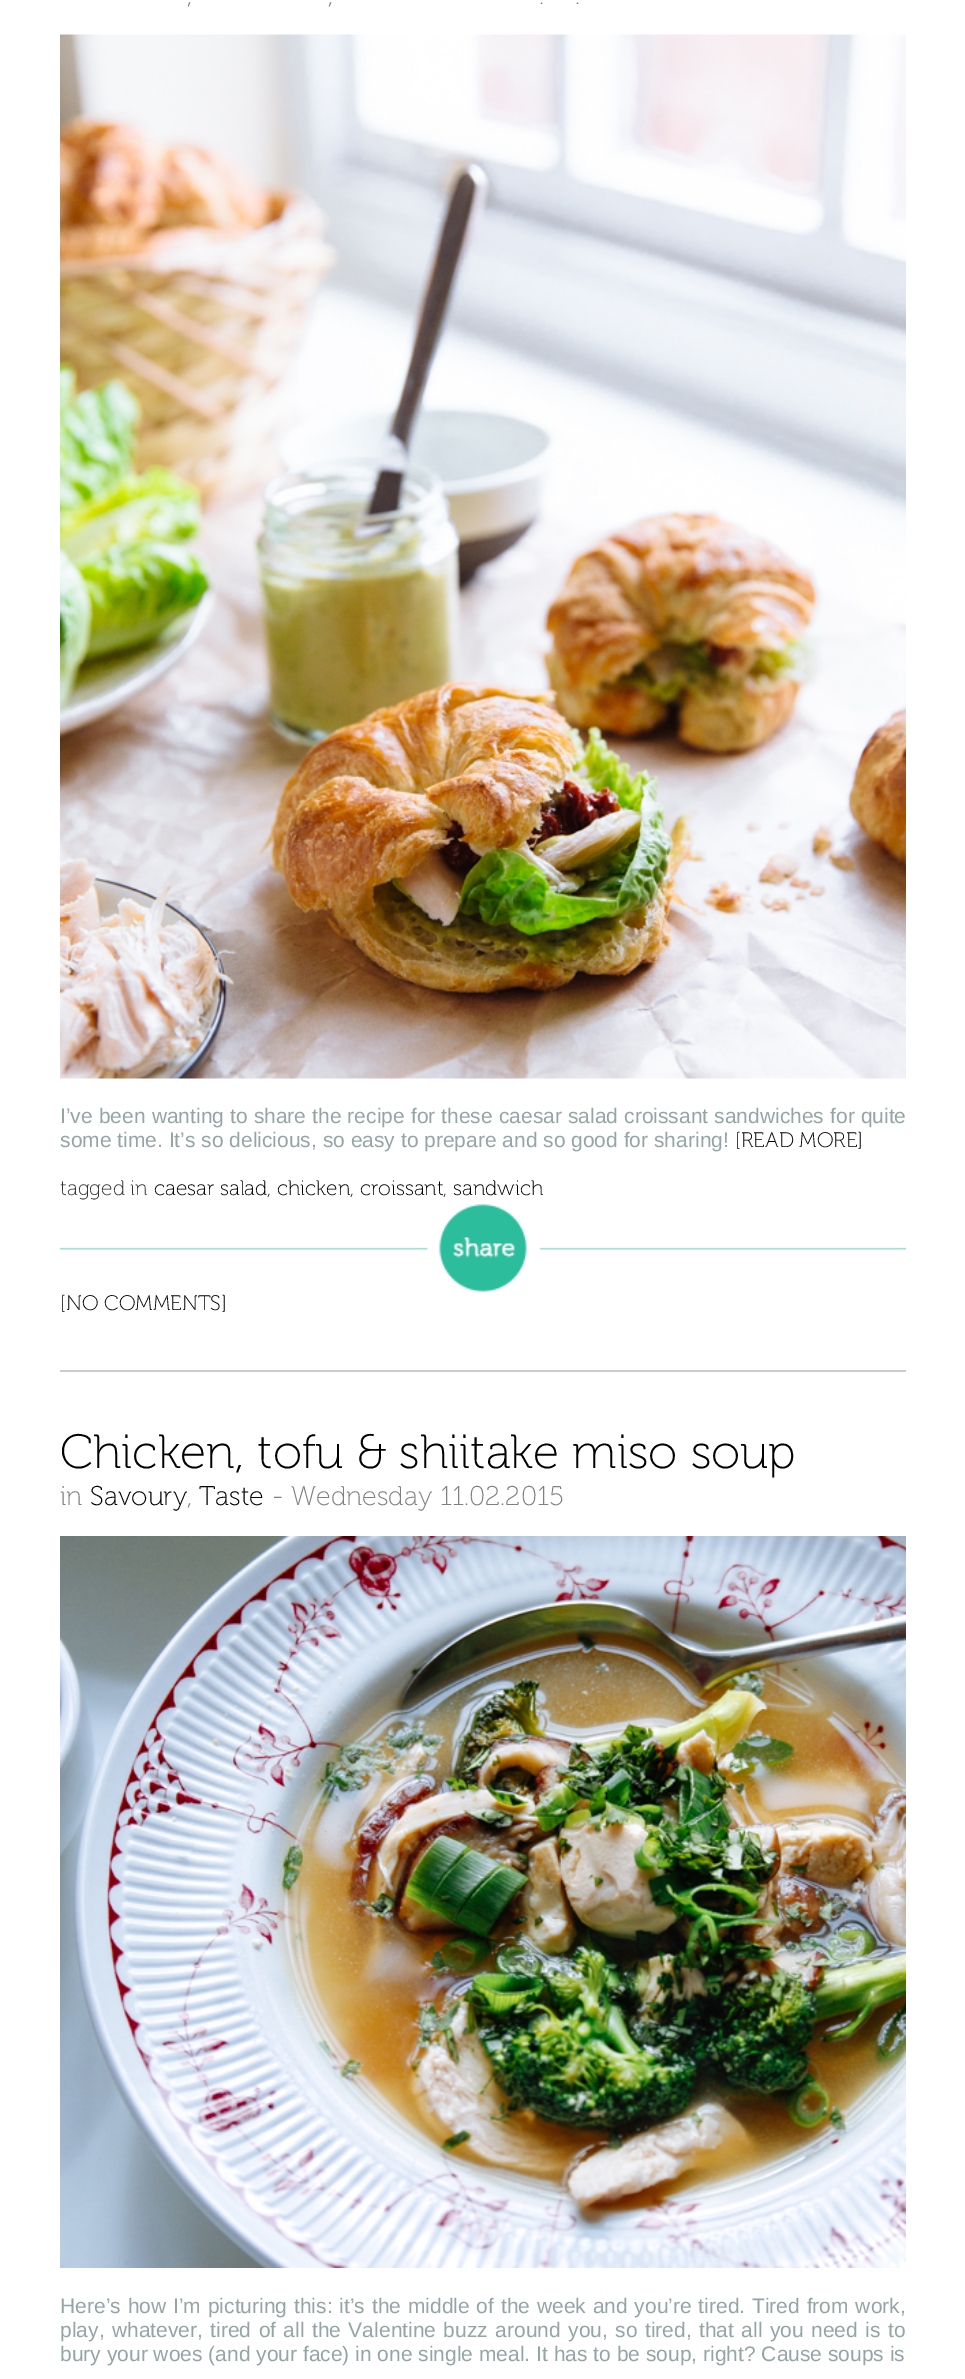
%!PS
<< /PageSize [965 2379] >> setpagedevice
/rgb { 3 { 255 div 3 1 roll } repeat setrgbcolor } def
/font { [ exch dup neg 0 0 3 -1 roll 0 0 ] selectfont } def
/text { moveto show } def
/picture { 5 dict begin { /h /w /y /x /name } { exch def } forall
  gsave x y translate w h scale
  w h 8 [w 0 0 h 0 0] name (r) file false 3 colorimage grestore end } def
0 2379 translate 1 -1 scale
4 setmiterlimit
255 255 255 rgb
0 0 965 2379 rectfill
204 204 204 rgb
60 1370 846 2 rectfill
(img_01.rgb) 60 34 846 1045 picture
(img_02.rgb) 60 1204 846 88 picture
(img_03.rgb) 60 1536 846 732 picture
/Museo-Regular 27 font
128 127 127 rgb
(,) 187 4 text
(,) 328 4 text
(.) 539 4 text
(.) 575 4 text
/LiberationSans-Regular 21 font
149 165 166 rgb
60 1123 moveto 0.25 0 32 (I’ve been wanting to share the recipe for these caesar salad croissant sandwiches for quite) widthshow
(some time. It’s so delicious, so easy to prepare and so good for sharing!) 60 1147 text
/Museo-Regular 21 font
0 0 0 rgb
([READ MORE]) 735 1147 text
51 51 51 rgb
(tagged in) 60 1195 text
0 0 0 rgb
(caesar salad) 154 1195 text
51 51 51 rgb
(,) 267 1195 text
0 0 0 rgb
(chicken) 277 1195 text
51 51 51 rgb
(,) 350 1195 text
0 0 0 rgb
(croissant) 360 1195 text
51 51 51 rgb
(,) 443 1195 text
0 0 0 rgb
(sandwich) 453 1195 text
([NO COMMENTS]) 60 1310 text
/Museo-Regular 48 font
(Chicken, tofu & shiitake miso soup) 60 1468 text
/Museo-Regular 27 font
128 127 127 rgb
(in) 60 1505 text
0 0 0 rgb
(Savoury) 90 1505 text
128 127 127 rgb
(,) 187 1505 text
0 0 0 rgb
(Taste) 199 1505 text
128 127 127 rgb
(- Wednesday 11.02.2015) 272 1505 text
/LiberationSans-Regular 21 font
149 165 166 rgb
60 2313 moveto 1 0 32 (Here’s how I’m picturing this: it’s the middle of the week and you’re tired. Tired from work,) widthshow
60 2337 moveto 1.6 0 32 (play, whatever, tired of all the Valentine buzz around you, so tired, that all you need is to) widthshow
(bury your woes \(and your face\) in one single meal. It has to be soup, right? Cause soups is) 60 2361 text
showpage
